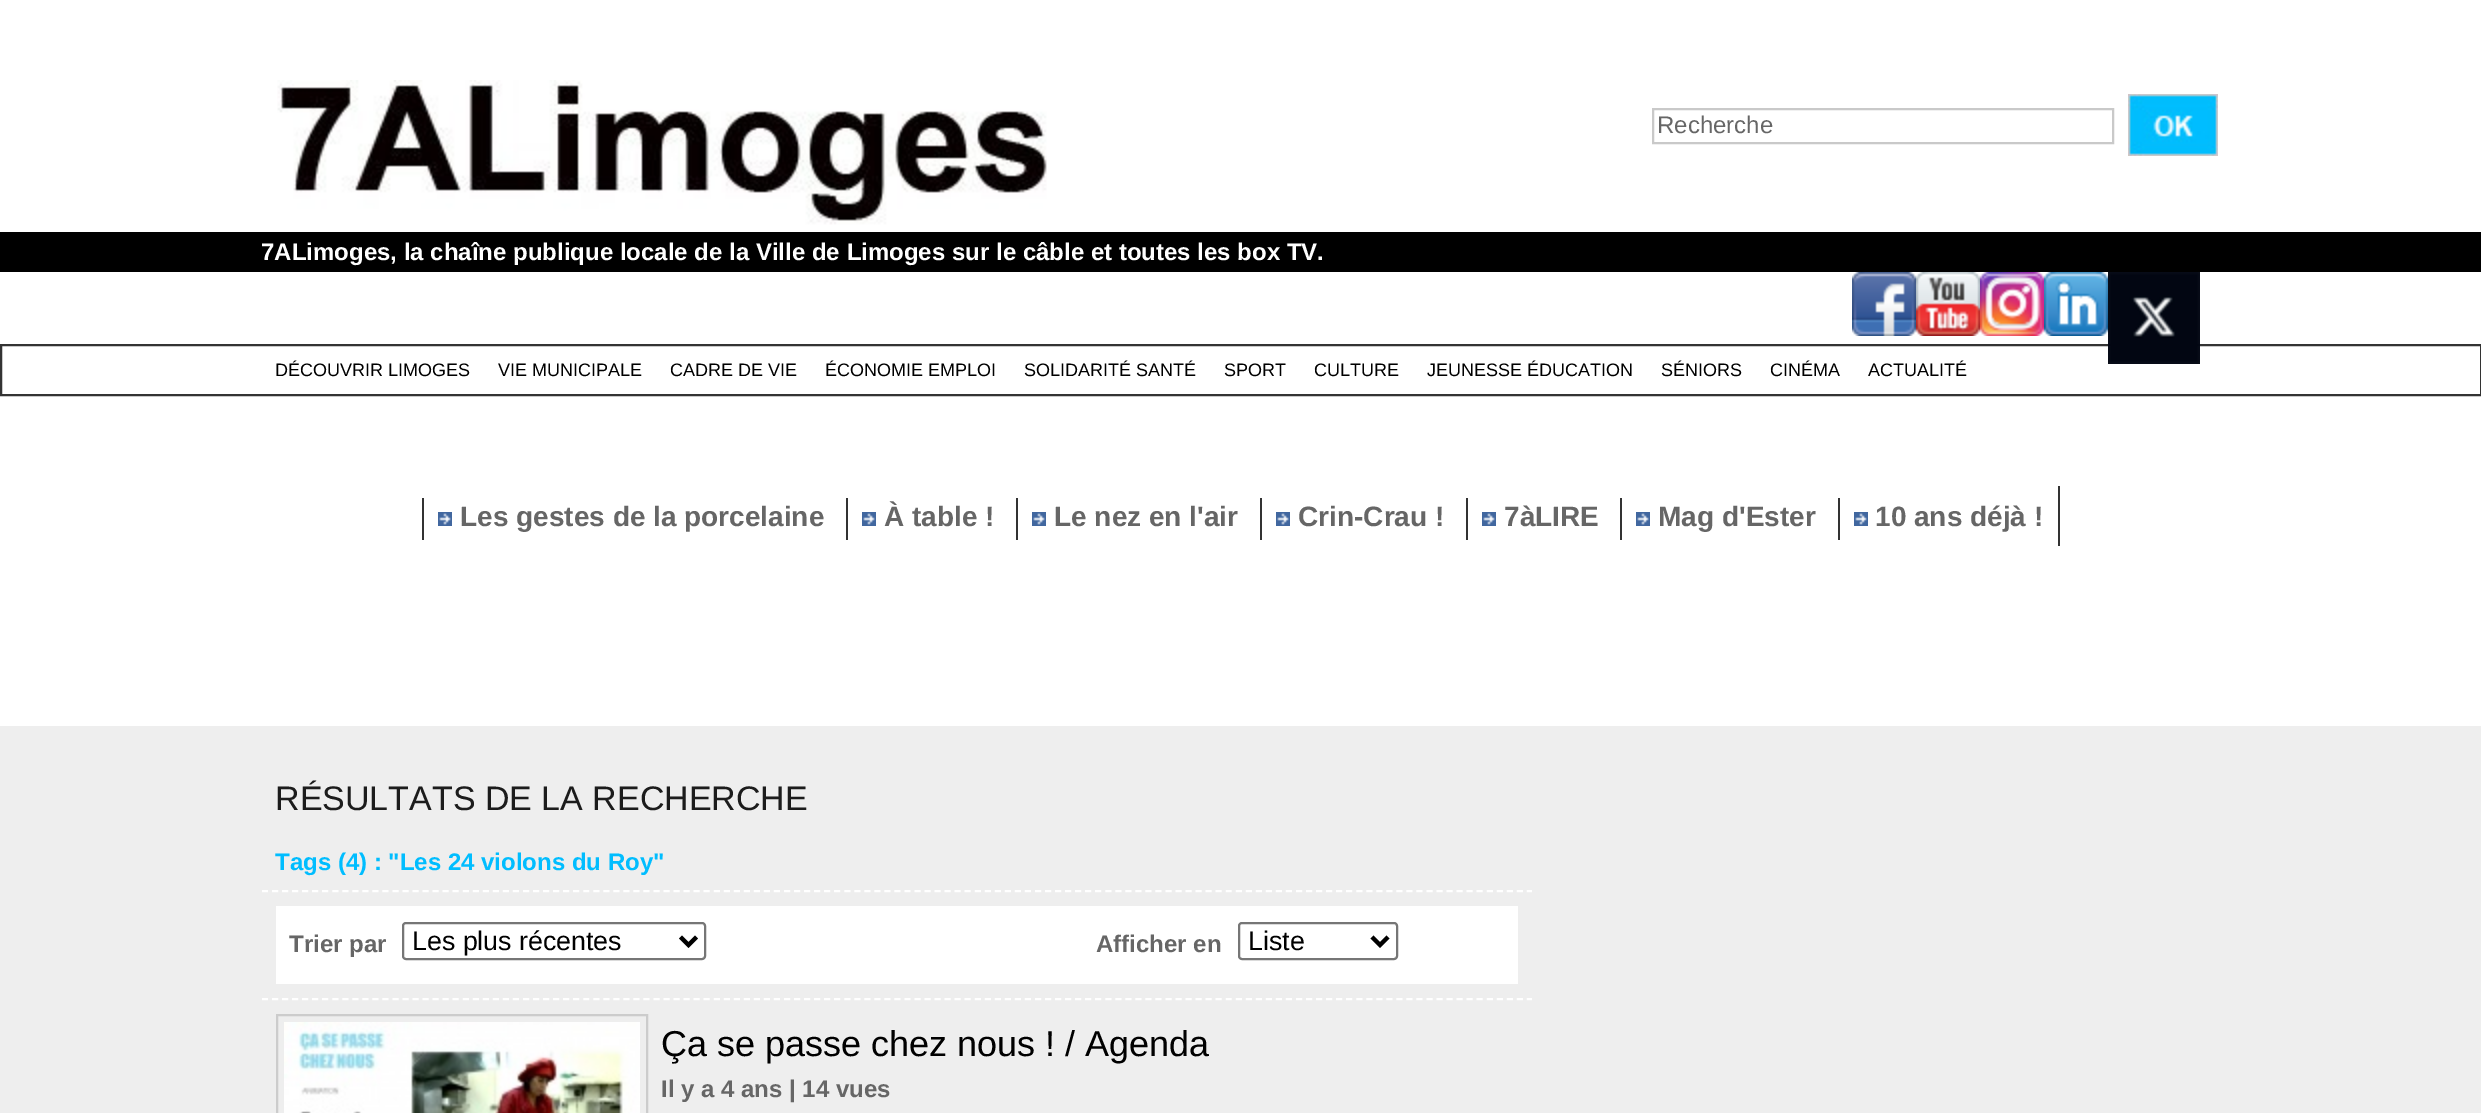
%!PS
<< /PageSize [2481 1113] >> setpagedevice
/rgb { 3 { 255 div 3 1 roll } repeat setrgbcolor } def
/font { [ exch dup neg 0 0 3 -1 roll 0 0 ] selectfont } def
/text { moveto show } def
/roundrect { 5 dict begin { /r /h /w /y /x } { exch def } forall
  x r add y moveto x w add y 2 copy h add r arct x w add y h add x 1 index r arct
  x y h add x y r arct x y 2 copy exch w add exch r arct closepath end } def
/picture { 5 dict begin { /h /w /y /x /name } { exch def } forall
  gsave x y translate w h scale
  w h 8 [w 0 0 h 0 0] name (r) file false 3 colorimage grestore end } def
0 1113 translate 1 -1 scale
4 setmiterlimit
238 238 238 rgb
0 0 2481 1113 rectfill
255 255 255 rgb
0 0 2481 726 rectfill
(img_01.rgb) 277 80 770 145 picture
201 201 201 rgb
2 setlinewidth
1653 109 460 34 rectstroke
(img_02.rgb) 2128 94 90 62 picture
0 0 0 rgb
0 232 2481 40 rectfill
(img_03.rgb) 1852 272 64 64 picture
(img_04.rgb) 1916 272 64 64 picture
(img_05.rgb) 1980 272 64 64 picture
(img_06.rgb) 2044 272 64 64 picture
51 51 51 rgb
1 345 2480 50 rectstroke
(img_07.rgb) 2108 272 92 92 picture
(img_08.rgb) 438 512 14 14 picture
422 498 2 42 rectfill
(img_08.rgb) 862 512 14 14 picture
846 498 2 42 rectfill
(img_08.rgb) 1032 512 14 14 picture
1016 498 2 42 rectfill
(img_08.rgb) 1276 512 14 14 picture
1260 498 2 42 rectfill
(img_08.rgb) 1482 512 14 14 picture
1466 498 2 42 rectfill
(img_08.rgb) 1636 512 14 14 picture
1620 498 2 42 rectfill
(img_08.rgb) 1854 512 14 14 picture
1838 498 2 42 rectfill
2058 486 2 60 rectfill
255 255 255 rgb
[6 4.04] 0 setdash
262 891 moveto 1270 0 rlineto stroke
262 999 moveto 1270 0 rlineto stroke
276 906 1242 78 rectfill
118 118 118 rgb
[] 0 setdash
403 923 302 36 3 roundrect stroke
0 0 0 rgb
4 setlinewidth
680.5 937 moveto 8 8 rlineto 8 -8 rlineto stroke
118 118 118 rgb
2 setlinewidth
1239 923 158 36 3 roundrect stroke
0 0 0 rgb
4 setlinewidth
1372 937 moveto 8 8 rlineto 8 -8 rlineto stroke
204 204 204 rgb
2 setlinewidth
277 1015 370 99 rectstroke
(img_09.rgb) 284 1022 356 91 picture
/LiberationSans-Regular 24 font
102 102 102 rgb
(Recherche) 1657 133 text
/LiberationSans-Bold 24 font
255 255 255 rgb
(7ALimoges, la chaîne publique locale de la Ville de Limoges sur le câble et toutes les box TV.) 261 260 text
/LiberationSans-Regular 18 font
0 0 0 rgb
(DÉCOUVRIR LIMOGES) 275 376 text
(VIE MUNICIPALE) 498 376 text
(CADRE DE VIE) 670 376 text
(ÉCONOMIE EMPLOI) 825 376 text
(SOLIDARITÉ SANTÉ) 1024 376 text
(SPORT) 1224 376 text
(CULTURE) 1314 376 text
(JEUNESSE ÉDUCATION) 1427 376 text
(SÉNIORS) 1661 376 text
(CINÉMA) 1770 376 text
(ACTUALITÉ) 1868 376 text
/LiberationSans-Bold 28 font
102 102 102 rgb
(Les gestes de la porcelaine) 460 526 text
(À table !) 884 526 text
(Le nez en l'air) 1054 526 text
(Crin-Crau !) 1298 526 text
(7àLIRE) 1504 526 text
(Mag d'Ester) 1658 526 text
(10 ans déjà !) 1875 526 text
/LiberationSans-Regular 34 font
28 28 28 rgb
(RÉSULTATS DE LA RECHERCHE) 275 810 text
/LiberationSans-Bold 24 font
0 189 255 rgb
(Tags \(4\) : "Les 24 violons du Roy") 275 870 text
102 102 102 rgb
(Trier par) 289 952 text
/LiberationSans-Regular 26.75 font
0 0 0 rgb
(Les plus récentes) 412 950 text
/LiberationSans-Bold 24 font
102 102 102 rgb
(Afficher en) 1096 952 text
/LiberationSans-Regular 26.75 font
0 0 0 rgb
(Liste) 1248 950 text
/LiberationSans-Regular 36 font
(Ça se passe chez nous ! / Agenda) 661 1056 text
/LiberationSans-Bold 24 font
102 102 102 rgb
(Il y a 4 ans | 14 vues) 661 1097 text
showpage
